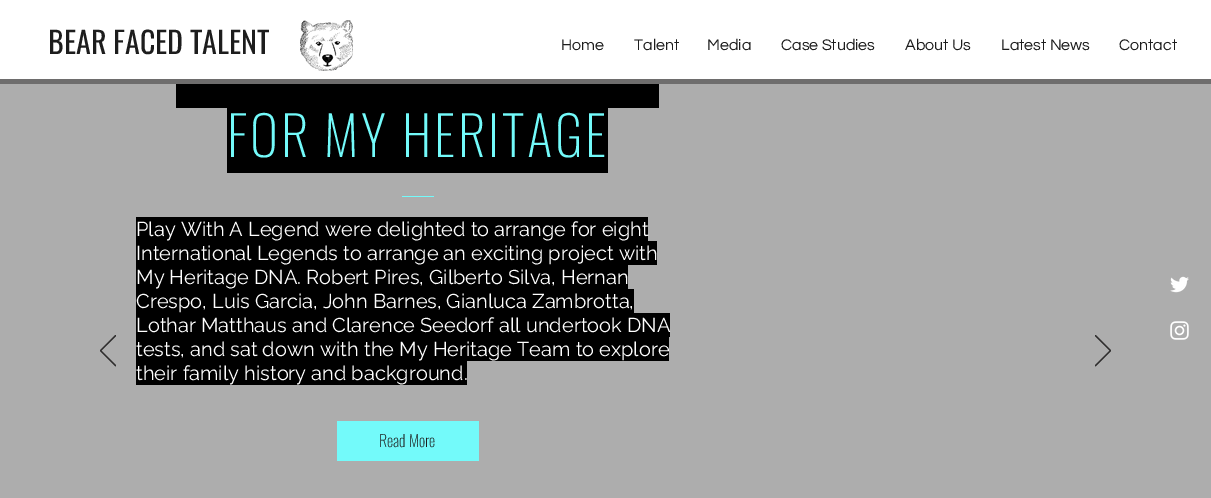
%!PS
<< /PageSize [1211 498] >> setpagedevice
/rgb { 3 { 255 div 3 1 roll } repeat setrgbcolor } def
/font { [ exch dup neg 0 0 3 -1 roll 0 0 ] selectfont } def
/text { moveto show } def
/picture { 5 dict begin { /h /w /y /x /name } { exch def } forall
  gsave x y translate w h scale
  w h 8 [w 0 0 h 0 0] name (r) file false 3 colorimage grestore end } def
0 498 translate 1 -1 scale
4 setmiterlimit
173 173 173 rgb
0 0 1211 498 rectfill
255 255 255 rgb
0 0 1211 79 rectfill
110 109 109 rgb
0 79 1211 5 rectfill
(img_01.rgb) 300 20 53 51 picture
(img_02.rgb) 100 335 16 32 picture
0 0 0 rgb
176 84 483 24 rectfill
227 108 381 65 rectfill
115 250 250 rgb
402 196 32 1 rectfill
0 0 0 rgb
136 217 512 24 rectfill
136 241 521 24 rectfill
136 265 492 24 rectfill
136 289 498 24 rectfill
136 313 534 24 rectfill
136 337 533 24 rectfill
136 361 331 24 rectfill
115 250 250 rgb
337 421 142 40 rectfill
(img_03.rgb) 1095 335 16 32 picture
(img_04.rgb) 1170 276 19 17 picture
(img_05.rgb) 1170 321 19 19 picture
/Oswald-Regular 30 font
29 29 29 rgb
(BEAR FACED TALENT) 48 54 text
/Questrial-Regular 16 font
(Home) 561 50 text
(Talent) 634 50 text
(Media) 707 50 text
(Case Studies) 781 50 text
(About Us) 905 50 text
(Latest News) 1001 50 text
(Contact) 1119 50 text
/Oswald-ExtraLight 54 font
115 250 250 rgb
227 157 moveto 2.75 0 (FOR MY HERITAGE) ashow
/Raleway-Regular 20 font
255 255 255 rgb
(Play With A Legend were delighted to arrange for eight) 136 236 text
(International Legends to arrange an exciting project with) 136 260 text
(My Heritage DNA. Robert Pires, Gilberto Silva, Hernan) 136 284 text
(Crespo, Luis Garcia, John Barnes, Gianluca Zambrotta,) 136 308 text
(Lothar Matthaus and Clarence Seedorf all undertook DNA) 136 332 text
(tests, and sat down with the My Heritage Team to explore) 136 356 text
(their family history and background.) 136 380 text
/Oswald-ExtraLight 16 font
29 29 29 rgb
(Read More) 379 447 text
showpage
